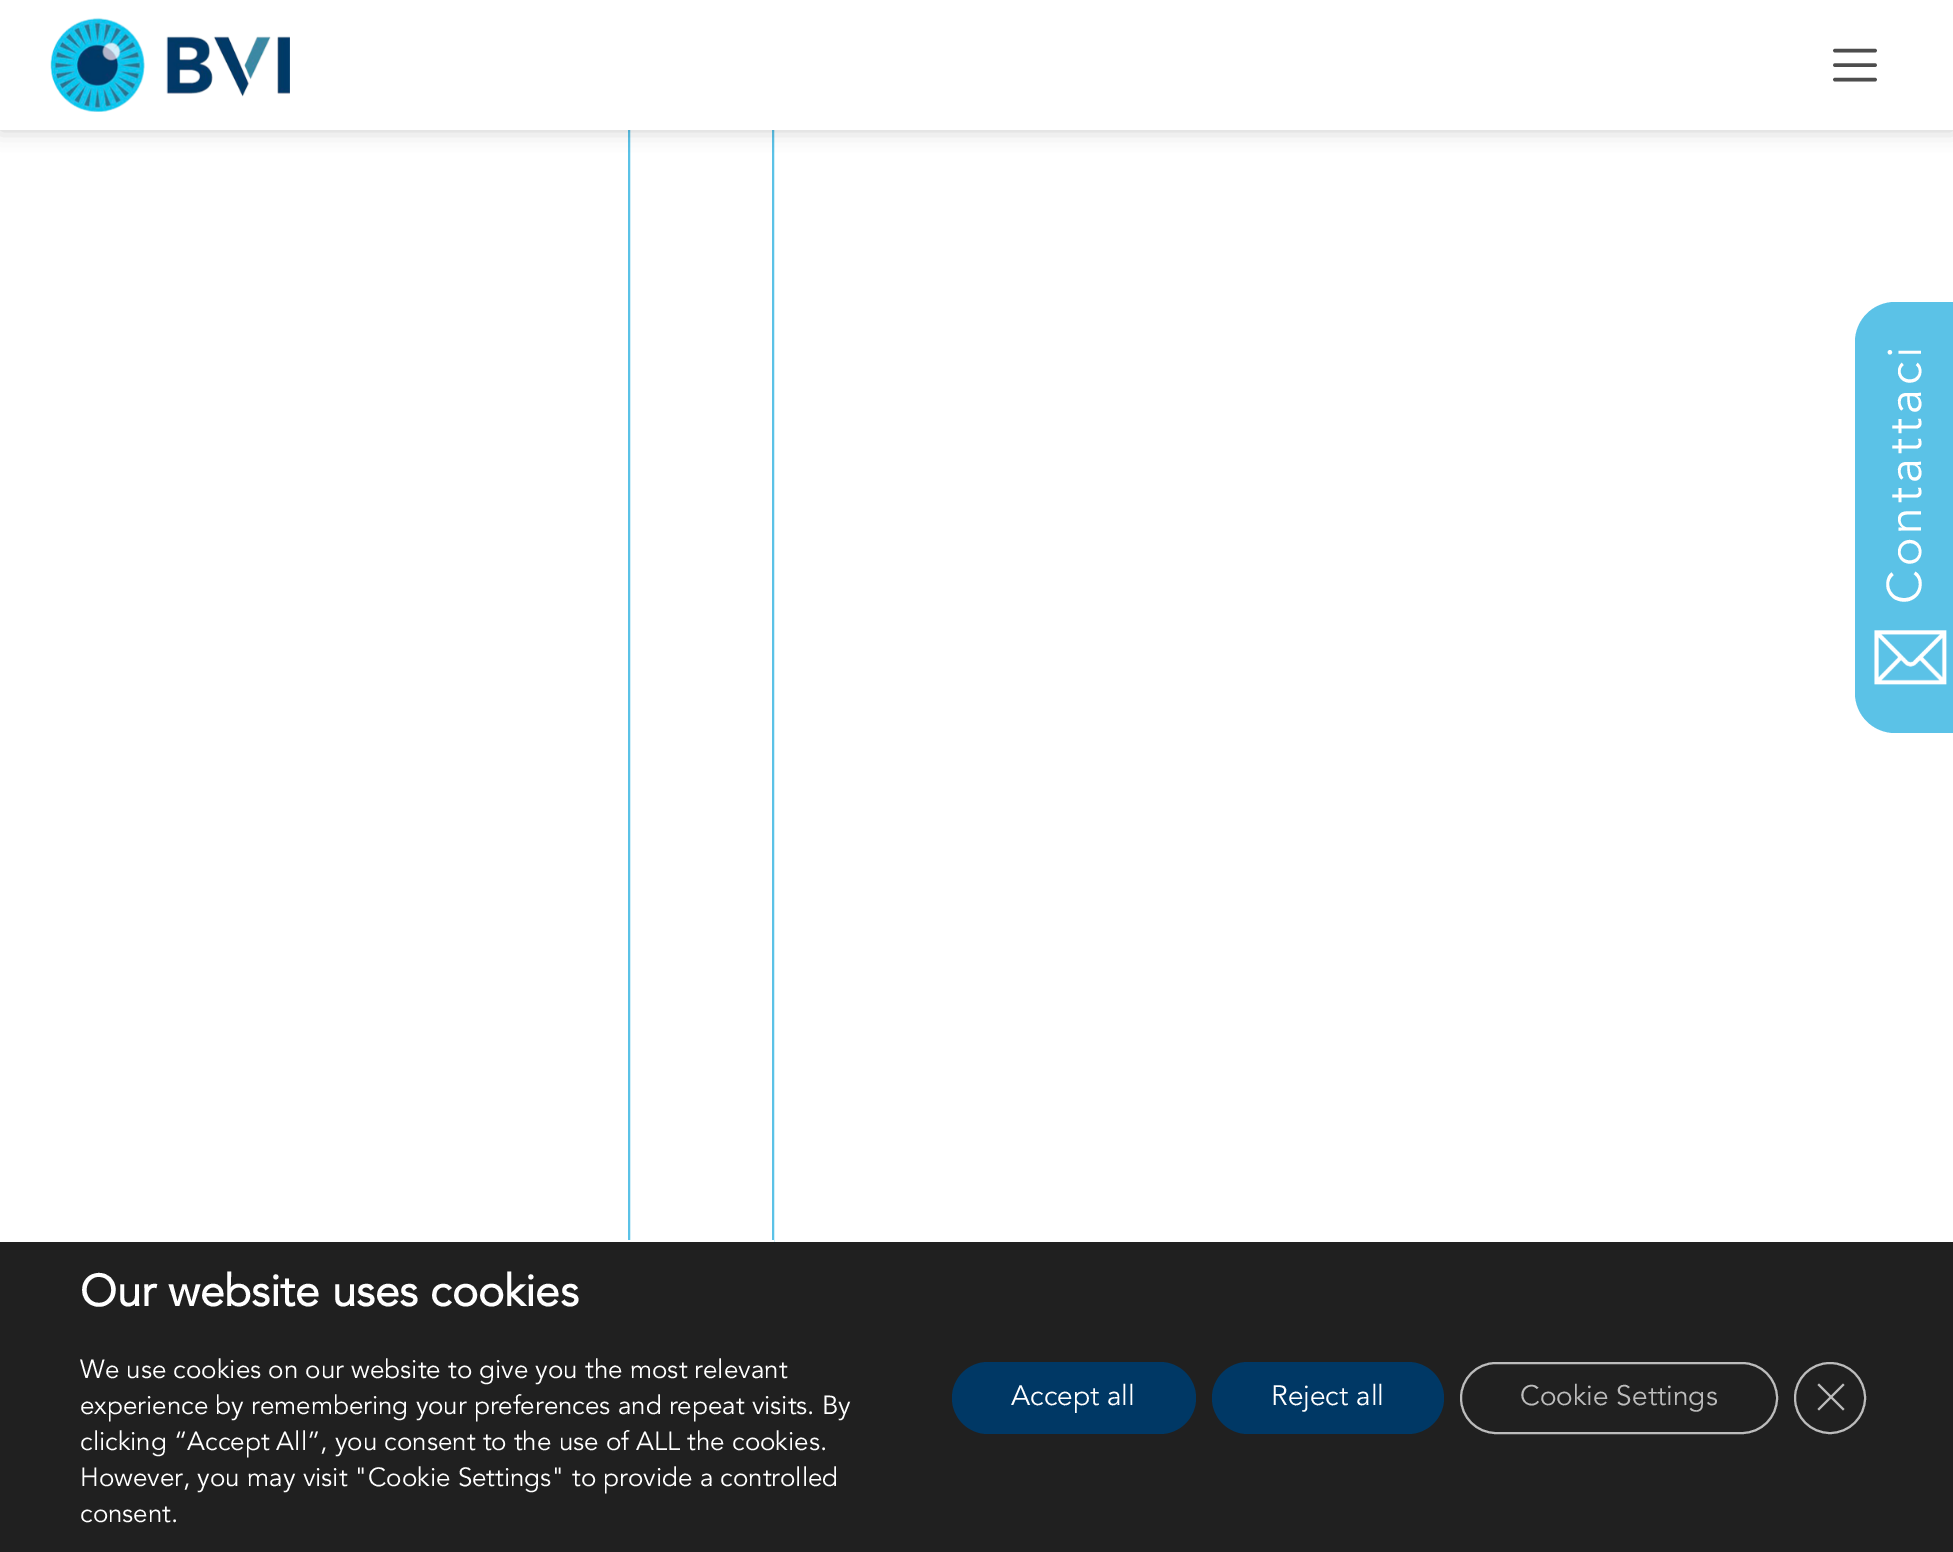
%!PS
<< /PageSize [1953 1552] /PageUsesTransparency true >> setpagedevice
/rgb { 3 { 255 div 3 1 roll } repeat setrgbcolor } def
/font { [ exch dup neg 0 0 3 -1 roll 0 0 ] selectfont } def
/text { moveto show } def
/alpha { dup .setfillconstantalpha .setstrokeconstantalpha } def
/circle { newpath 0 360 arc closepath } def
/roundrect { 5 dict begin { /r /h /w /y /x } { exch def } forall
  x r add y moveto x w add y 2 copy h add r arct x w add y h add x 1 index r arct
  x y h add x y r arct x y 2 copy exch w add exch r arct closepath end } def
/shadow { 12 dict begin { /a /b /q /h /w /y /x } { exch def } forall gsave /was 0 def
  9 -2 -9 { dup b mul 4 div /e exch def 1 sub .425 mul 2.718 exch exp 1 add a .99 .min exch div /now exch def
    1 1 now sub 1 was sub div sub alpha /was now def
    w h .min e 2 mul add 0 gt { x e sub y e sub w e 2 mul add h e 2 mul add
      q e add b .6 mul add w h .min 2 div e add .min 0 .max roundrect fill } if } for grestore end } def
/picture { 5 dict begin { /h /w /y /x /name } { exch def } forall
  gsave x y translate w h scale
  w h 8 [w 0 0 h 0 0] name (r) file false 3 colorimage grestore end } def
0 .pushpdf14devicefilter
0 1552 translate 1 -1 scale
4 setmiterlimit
255 255 255 rgb
0 0 1953 1552 rectfill
91 194 231 rgb
2 setlinewidth
629 -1 144 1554 rectstroke
0 0 0 rgb
0 0 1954 130 0 10 0.2 shadow
255 255 255 rgb
0 0 1953 130 rectfill
(img_01.rgb) 50 17 240 95 picture
77 77 77 rgb
3.6 setlinewidth
1 setlinecap
1835 50.5 moveto 40 0 rlineto 1835 65 moveto 40 0 rlineto 1835 79.5 moveto 40 0 rlineto stroke
91 194 231 rgb
1855 693 moveto 0 -351 rlineto 0 -22 18 -40 40 -40 rcurveto 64 0 rlineto 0 431 rlineto -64 0 rlineto -22 0 -40 -18 -40 -40 rcurveto closepath fill
(img_02.rgb) 1874 630 73 55 picture
32 32 32 rgb
0 1242 1953 310 rectfill
255 255 255 rgb
628 1240 146 2 rectfill
0 56 101 rgb
952 1362 244 72 36 roundrect fill
1212 1362 232 72 36 roundrect fill
188 188 188 rgb
2 setlinewidth
0 setlinecap
1461 1363 316 70 35 roundrect stroke
1830 1398 35 circle stroke
1843 1383.5 moveto 1.5 1.5 rlineto -25.5 25.5 rlineto -1.5 -1.5 rlineto closepath fill
1817.5 1385 moveto 1.5 -1.5 rlineto 25.5 25.5 rlineto -1.5 1.5 rlineto closepath fill
/Avenir-Regular 48 font
255 255 255 rgb
gsave 1921 604 translate -90 rotate 0 0 moveto 4 0 (Contattaci) ashow grestore
/Avenir-Bold 44 font
(Our website uses cookies) 80 1306 text
/Avenir-Regular 26 font
(We use cookies on our website to give you the most relevant) 80 1378 text
(experience by remembering your preferences and repeat visits. By) 80 1414 text
(clicking “Accept All”, you consent to the use of ALL the cookies.) 80 1450 text
(However, you may visit "Cookie Settings" to provide a controlled) 80 1486 text
(consent.) 80 1522 text
/Avenir-Regular 28 font
(Accept all) 1011 1405 text
(Reject all) 1271 1405 text
188 188 188 rgb
(Cookie Settings) 1520 1405 text
.poppdf14devicefilter showpage
